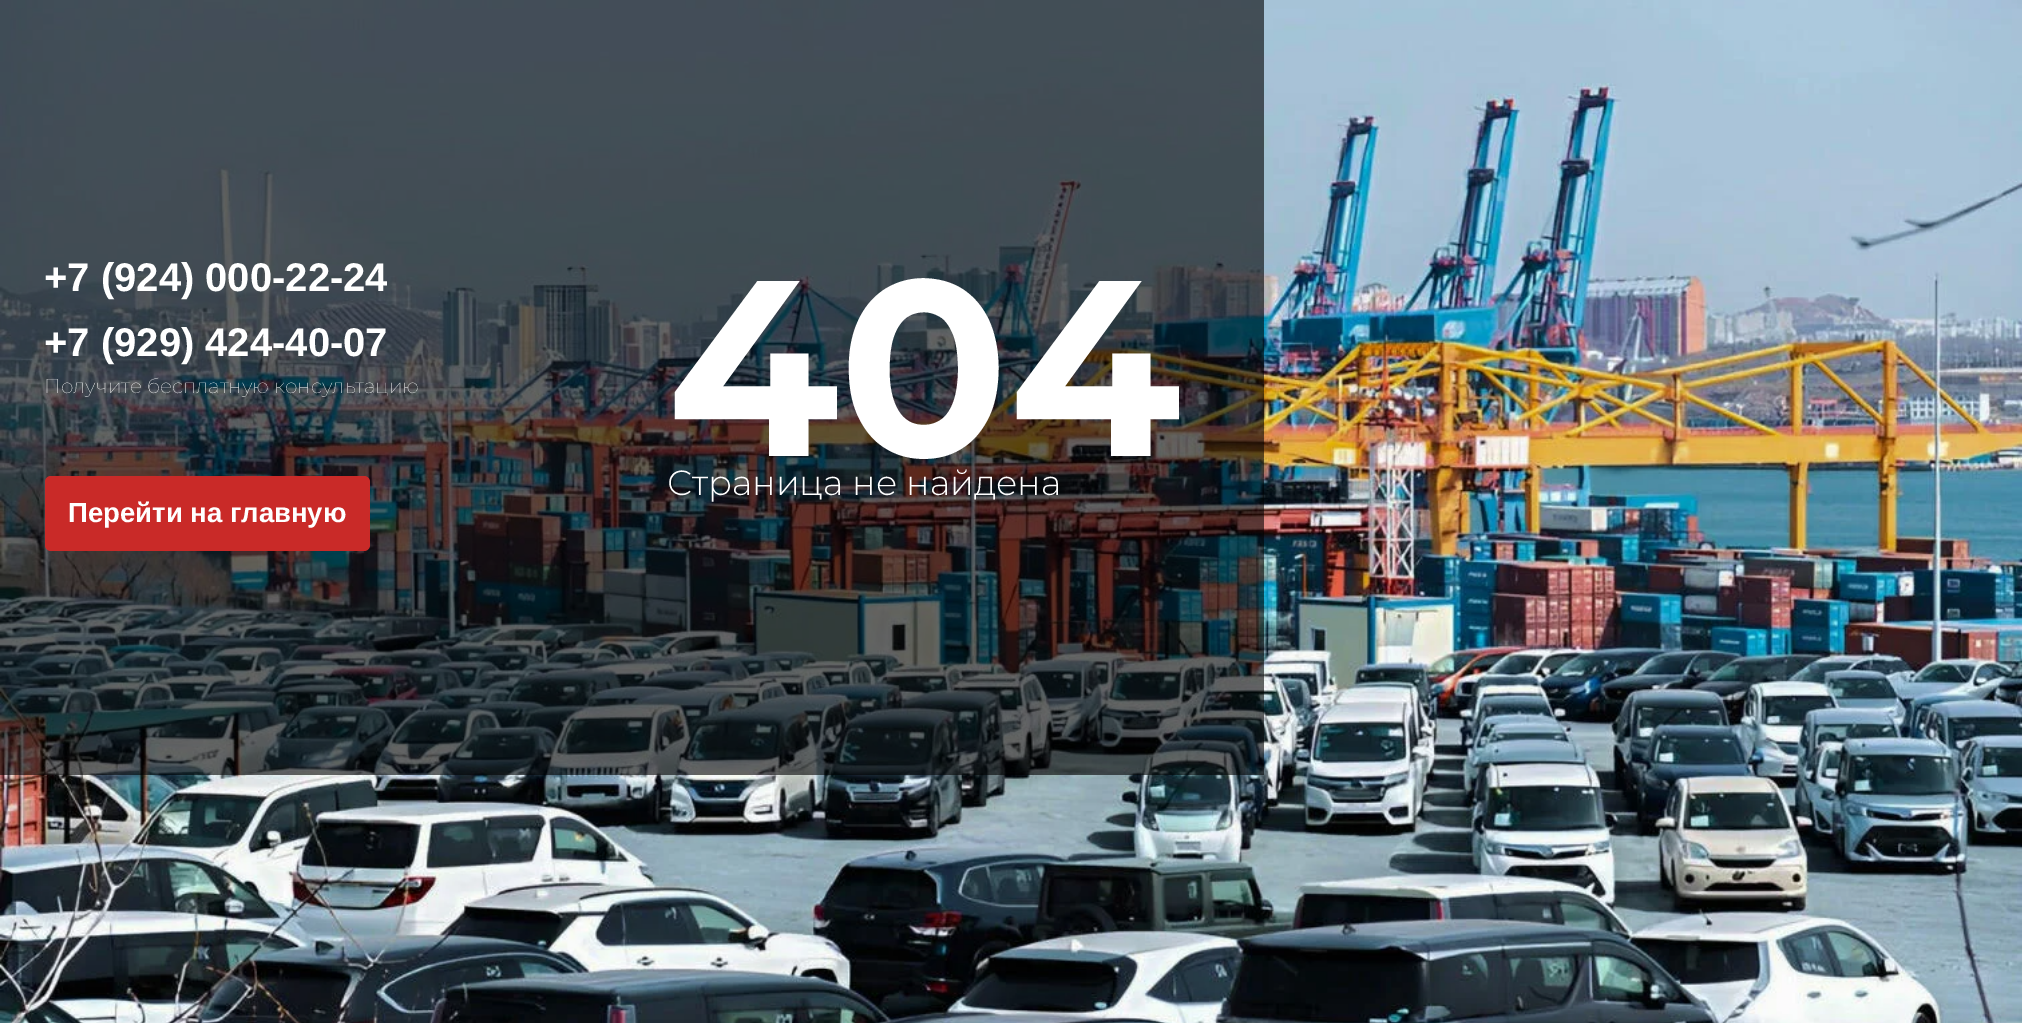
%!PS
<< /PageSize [2022 1023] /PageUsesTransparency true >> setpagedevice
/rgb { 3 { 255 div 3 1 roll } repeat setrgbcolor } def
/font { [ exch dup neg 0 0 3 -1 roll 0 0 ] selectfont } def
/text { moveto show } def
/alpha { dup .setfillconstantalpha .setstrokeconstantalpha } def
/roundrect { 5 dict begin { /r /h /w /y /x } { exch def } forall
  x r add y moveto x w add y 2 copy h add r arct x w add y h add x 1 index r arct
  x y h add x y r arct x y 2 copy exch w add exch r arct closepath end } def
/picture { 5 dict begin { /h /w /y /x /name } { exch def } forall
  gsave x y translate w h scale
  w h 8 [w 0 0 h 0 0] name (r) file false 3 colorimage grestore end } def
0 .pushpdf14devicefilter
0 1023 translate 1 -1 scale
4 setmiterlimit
255 255 255 rgb
0 0 2022 1023 rectfill
(img_01.rgb) 0 0 2022 1023 picture
0.6 alpha
0 0 0 rgb
0 0 1264 775 rectfill
1 alpha
201 42 40 rgb
45 476 325 75 6 roundrect fill
/LiberationSans-Bold 40 font
255 255 255 rgb
(+7 \(924\) 000-22-24) 44 291 text
/Montserrat-Bold 250 font
(404) 667 456 text
/LiberationSans-Bold 40 font
(+7 \(929\) 424-40-07) 44 356 text
/Montserrat-Thin 20 font
(Получите бесплатную консультацию) 44 393 text
/Montserrat-Light 35 font
(Страница не найдена) 667 495 text
/LiberationSans-Bold 27.5 font
(Перейти на главную) 68 522 text
.poppdf14devicefilter showpage
